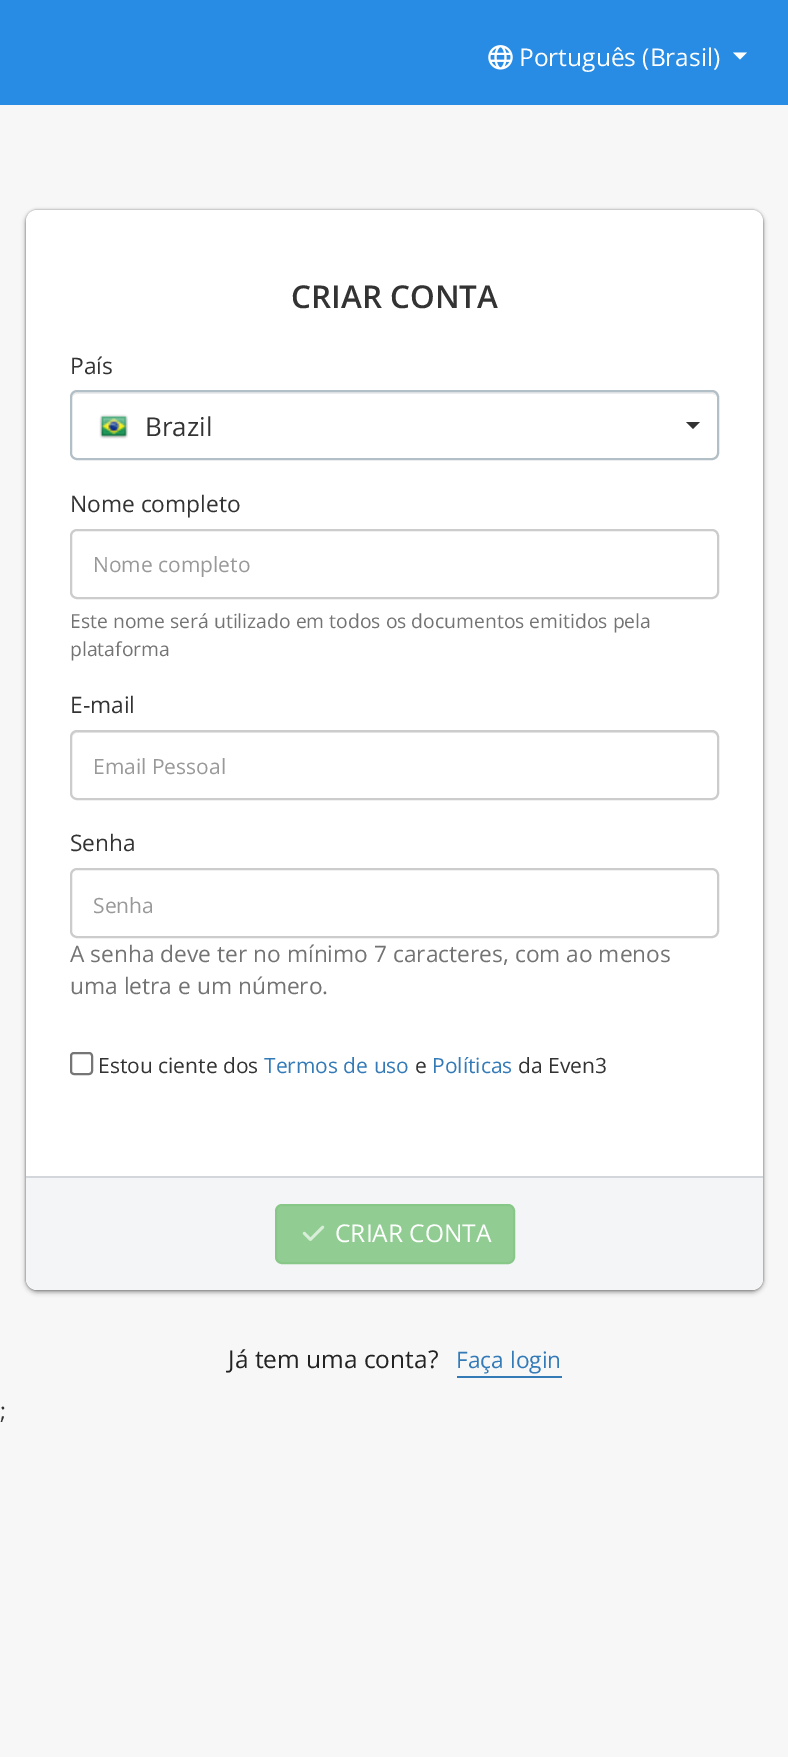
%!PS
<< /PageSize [788 1757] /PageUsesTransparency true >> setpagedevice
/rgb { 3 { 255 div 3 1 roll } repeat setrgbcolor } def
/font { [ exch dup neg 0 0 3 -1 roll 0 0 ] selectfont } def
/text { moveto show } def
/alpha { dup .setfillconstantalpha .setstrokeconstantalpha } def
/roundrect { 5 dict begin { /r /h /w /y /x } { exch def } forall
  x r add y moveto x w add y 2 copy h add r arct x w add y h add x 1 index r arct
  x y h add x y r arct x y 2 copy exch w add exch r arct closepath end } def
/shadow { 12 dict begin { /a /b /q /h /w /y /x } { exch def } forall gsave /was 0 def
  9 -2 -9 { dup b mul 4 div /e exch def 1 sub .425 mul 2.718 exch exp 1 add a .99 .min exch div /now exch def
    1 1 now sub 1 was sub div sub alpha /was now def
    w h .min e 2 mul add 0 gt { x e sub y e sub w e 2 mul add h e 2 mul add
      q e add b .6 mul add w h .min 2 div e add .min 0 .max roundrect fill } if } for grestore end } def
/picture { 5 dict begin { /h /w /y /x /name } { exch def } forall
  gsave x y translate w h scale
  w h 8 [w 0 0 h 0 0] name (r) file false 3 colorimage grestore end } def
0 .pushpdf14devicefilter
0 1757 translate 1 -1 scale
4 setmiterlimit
247 247 247 rgb
0 0 788 1757 rectfill
40 139 228 rgb
0 0 788 105 rectfill
(img_01.rgb) 488 45 25 25 picture
255 255 255 rgb
733 52.5 moveto 14 0 rlineto -7 7 rlineto closepath fill
0 0 0 rgb
26 210 737 1080 11 1 0.35 shadow
26 212 737 1080 11 2.5 0.4 shadow
255 255 255 rgb
26 210 737 1080 11 roundrect fill
236 236 236 rgb
77 394 moveto 635 0 rlineto 3 0 6 2 6 5 rcurveto 0 -2 rlineto 0 -3 -2 -5 -5 -5 rcurveto -636 0 rlineto -3 0 -5 2 -5 5 rcurveto 0 2 rlineto 0 -3 2 -5 5 -5 rcurveto closepath fill
178 191 199 rgb
2 setlinewidth
71 391 647 68 6 roundrect stroke
(img_02.rgb) 99 414 29 25 picture
51 51 51 rgb
686 422 moveto 14 0 rlineto -7 7 rlineto closepath fill
204 204 204 rgb
71 530 647 68 6 roundrect stroke
236 236 236 rgb
77 733 moveto 635 0 rlineto 3 0 6 3 6 5 rcurveto 0 -3 -2 -6 -5 -6 rcurveto -636 0 rlineto -3 0 -5 3 -5 6 rcurveto 0 -2 2 -5 5 -5 rcurveto closepath fill
204 204 204 rgb
71 731 647 68 6 roundrect stroke
71 869 647 68 6 roundrect stroke
118 118 118 rgb
71 1053 21 21 3 roundrect stroke
244 245 246 rgb
26 1176 moveto 737 0 rlineto 0 102 rlineto 0 6.5 -5.5 12 -12 12 rcurveto -713 0 rlineto -6.5 0 -12 -5.5 -12 -12 rcurveto closepath fill
211 215 219 rgb
26 1176 737 2 rectfill
145 205 146 rgb
276 1205 238 58 6 roundrect gsave fill grestore
135 199 136 rgb
stroke
(img_03.rgb) 302 1225 23 16 picture
51 122 183 rgb
457 1376 105 2 rectfill
/OpenSans-Regular 24.5 font
255 255 255 rgb
(Português \(Brasil\)) 519 66 text
/OpenSans-SemiBold 31.5 font
51 51 51 rgb
(CRIAR CONTA) 291 308 text
/OpenSans-Regular 22.75 font
(País) 70 374 text
/OpenSans-Regular 26 font
(Brazil) 145 436 text
/OpenSans-Regular 22.75 font
(Nome completo) 70 512 text
/OpenSans-Regular 21 font
153 153 153 rgb
(Nome completo) 93 572 text
/OpenSans-Regular 19.35 font
115 115 115 rgb
(Este nome será utilizado em todos os documentos emitidos pela) 70 628 text
(plataforma) 70 656 text
/OpenSans-Regular 22.75 font
51 51 51 rgb
(E-mail) 70 713 text
/OpenSans-Regular 21 font
153 153 153 rgb
(Email Pessoal) 93 774 text
/OpenSans-Regular 22.75 font
51 51 51 rgb
(Senha) 70 851 text
/OpenSans-Regular 21 font
153 153 153 rgb
(Senha) 93 913 text
/OpenSans-Regular 22.75 font
115 115 115 rgb
(A senha deve ter no mínimo 7 caracteres, com ao menos) 70 962 text
(uma letra e um número.) 70 994 text
/OpenSans-Regular 21 font
51 51 51 rgb
(Estou ciente dos) 98 1073 text
51 122 183 rgb
(Termos de uso) 264 1073 text
51 51 51 rgb
(e) 415 1073 text
51 122 183 rgb
(Políticas) 432 1073 text
51 51 51 rgb
(da Even3) 518 1073 text
/OpenSans-Regular 24.5 font
255 255 255 rgb
(CRIAR CONTA) 335 1242 text
34 34 34 rgb
(Já tem uma conta?) 228 1368 text
/OpenSans-Regular 22.75 font
51 122 183 rgb
(Faça login) 456 1368 text
51 51 51 rgb
(;) 0 1419 text
.poppdf14devicefilter showpage
